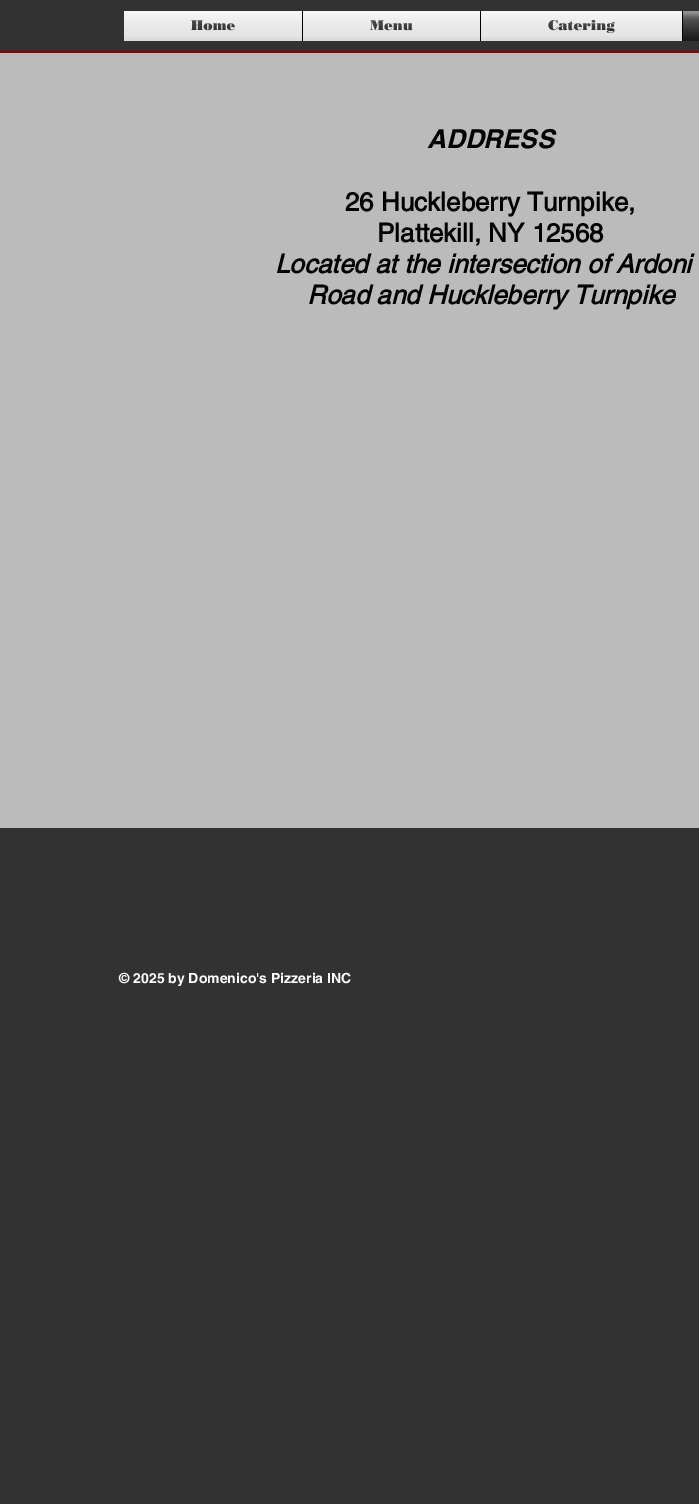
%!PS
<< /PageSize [699 1504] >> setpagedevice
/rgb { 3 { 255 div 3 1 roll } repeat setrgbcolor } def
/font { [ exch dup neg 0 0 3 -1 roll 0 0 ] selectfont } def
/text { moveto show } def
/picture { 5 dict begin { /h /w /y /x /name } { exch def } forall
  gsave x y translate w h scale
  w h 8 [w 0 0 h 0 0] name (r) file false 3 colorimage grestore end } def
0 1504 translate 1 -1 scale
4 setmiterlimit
50 50 50 rgb
0 0 699 1504 rectfill
255 255 255 rgb
124 11 178 30 rectfill
303 11 177 30 rectfill
0 0 0 rgb
302 11 1 30 rectfill
255 255 255 rgb
481 11 201 30 rectfill
0 0 0 rgb
480 11 1 30 rectfill
682 11 17 30 rectfill
(img_07.rgb) 683 11 16 30 picture
(img_08.rgb) 683 11 16 29 picture
139 0 0 rgb
0 51 699 2 rectfill
187 187 187 rgb
0 53 699 775 rectfill
/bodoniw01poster-Black 14 font
0 0 0 rgb
(Home) 191 30 text
(img_01.rgb) 191 20 44 11 picture
(img_02.rgb) 124 11 178 30 picture
(Menu) 370 30 text
(img_03.rgb) 370 20 43 11 picture
(img_04.rgb) 303 11 177 30 picture
(Catering) 548 30 text
(img_05.rgb) 548 20 67 13 picture
(img_06.rgb) 481 11 201 30 picture
/helvetica-BoldItalic 26 font
(ADDRESS) 427 148 text
/helvetica-Bold 26 font
(26 Huckleberry Turnpike,) 345 211 text
(Plattekill, NY 12568) 377 242 text
/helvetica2-BoldItalic 26 font
(Located at the intersection of Ardoni) 275 273 text
(Road and Huckleberry Turnpike) 307 304 text
/helvetica2-Bold 14 font
254 253 253 rgb
(© 2025 by Domenico's Pizzeria INC) 119 983 text
showpage
